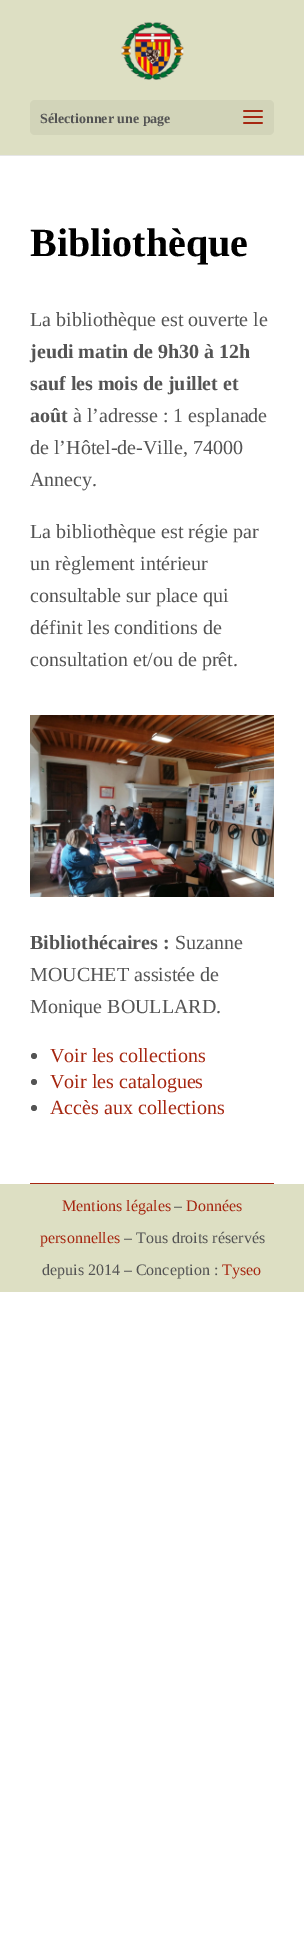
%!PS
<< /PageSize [304 1955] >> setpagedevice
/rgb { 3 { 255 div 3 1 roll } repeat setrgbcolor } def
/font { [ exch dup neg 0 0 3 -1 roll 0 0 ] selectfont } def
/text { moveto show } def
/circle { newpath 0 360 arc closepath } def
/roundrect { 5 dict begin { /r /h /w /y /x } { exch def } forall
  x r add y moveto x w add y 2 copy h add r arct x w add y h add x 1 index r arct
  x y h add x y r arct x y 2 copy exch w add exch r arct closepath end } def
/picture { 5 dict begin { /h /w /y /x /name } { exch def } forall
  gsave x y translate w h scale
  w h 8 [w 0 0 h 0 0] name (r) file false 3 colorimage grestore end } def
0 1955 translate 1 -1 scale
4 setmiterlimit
255 255 255 rgb
0 0 304 1955 rectfill
230 230 230 rgb
0 155 304 1 rectfill
221 223 195 rgb
0 0 304 155 rectfill
(img_01.rgb) 121 22 63 58 picture
210 212 185 rgb
30 100 244 35 5 roundrect fill
(img_02.rgb) 243 110 20 14 picture
166 39 17 rgb
30 1183 244 1 rectfill
(img_03.rgb) 30 715 244 182 picture
84 84 84 rgb
34 1056 3 circle fill
34 1082 3 circle fill
34 1108 3 circle fill
221 223 195 rgb
0 1184 304 108 rectfill
/LiberationSerif-Bold 14 font
84 84 84 rgb
(Sélectionner une page) 40 123 text
/LiberationSerif-Bold 40 font
0 0 0 rgb
(Bibliothèque) 30 256 text
/LiberationSerif-Regular 20 font
84 84 84 rgb
(La bibliothèque est ouverte le) 30 326 text
/LiberationSerif-Bold 20 font
(jeudi matin de 9h30 à 12h) 30 358 text
(sauf les mois de juillet et) 30 390 text
(août) 30 422 text
/LiberationSerif-Regular 20 font
(à l’adresse : 1 esplanade) 73 422 text
(de l’Hôtel-de-Ville, 74000) 30 454 text
(Annecy.) 30 486 text
(La bibliothèque est régie par) 30 538 text
(un règlement intérieur) 30 570 text
(consultable sur place qui) 30 602 text
(définit les conditions de) 30 634 text
(consultation et/ou de prêt.) 30 666 text
/LiberationSerif-Bold 20 font
(Bibliothécaires :) 30 949 text
/LiberationSerif-Regular 20 font
(Suzanne) 175 949 text
(MOUCHET assistée de) 30 981 text
(Monique BOULLARD.) 30 1013 text
166 39 17 rgb
(Voir les collections) 50 1062 text
(Voir les catalogues) 50 1088 text
(Accès aux collections) 50 1114 text
/LiberationSerif-Regular 16 font
(Mentions légales) 62 1211 text
84 84 84 rgb
(–) 174 1211 text
166 39 17 rgb
(Données) 186 1211 text
(personnelles) 40 1243 text
84 84 84 rgb
(– Tous droits réservés) 124 1243 text
(depuis 2014 – Conception :) 42 1275 text
166 39 17 rgb
(Tyseo) 222 1275 text
showpage
